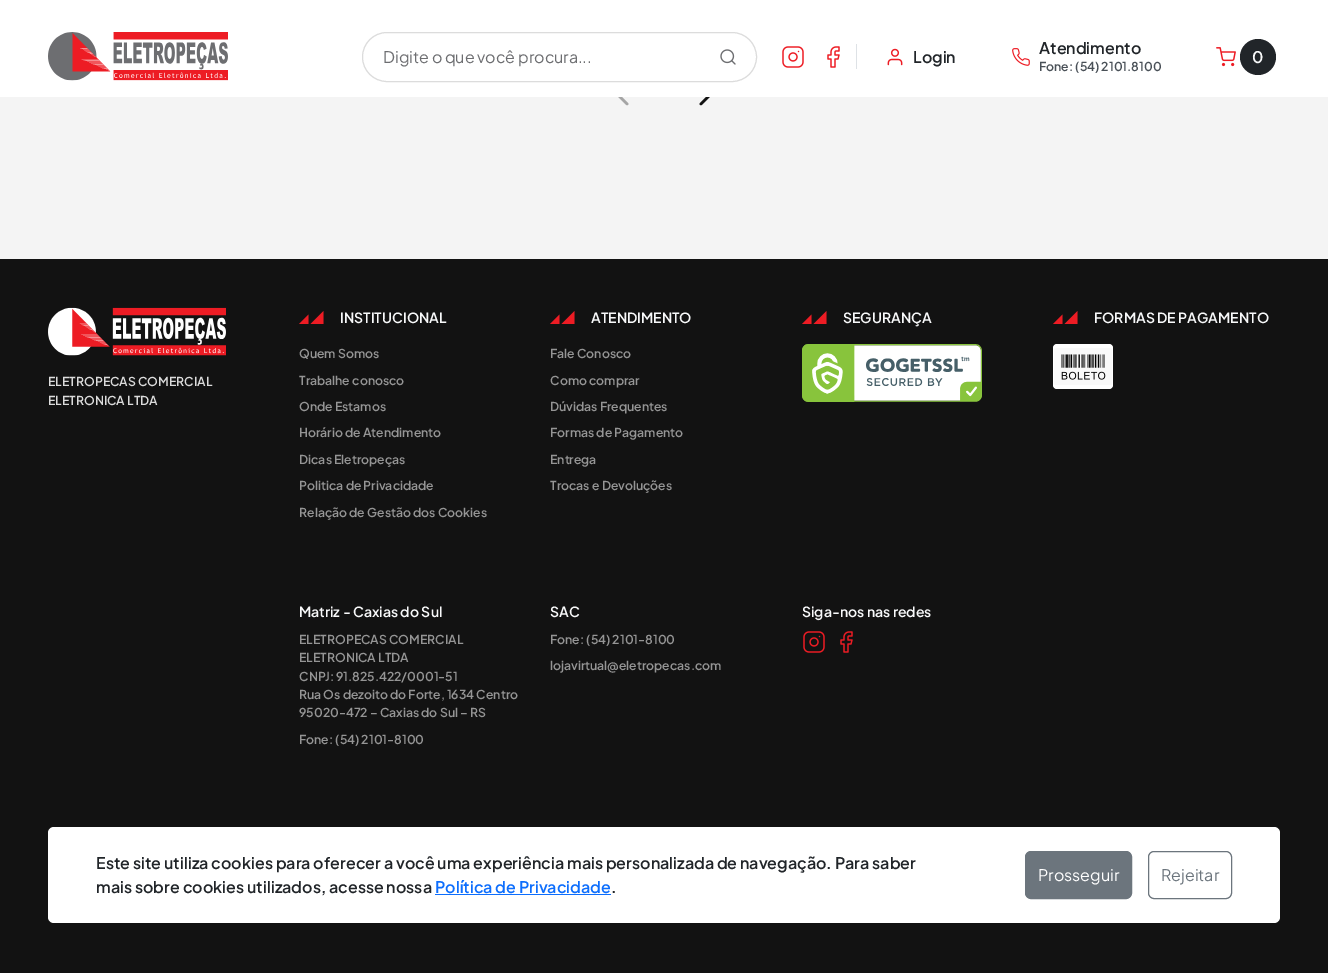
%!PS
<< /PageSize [1328 973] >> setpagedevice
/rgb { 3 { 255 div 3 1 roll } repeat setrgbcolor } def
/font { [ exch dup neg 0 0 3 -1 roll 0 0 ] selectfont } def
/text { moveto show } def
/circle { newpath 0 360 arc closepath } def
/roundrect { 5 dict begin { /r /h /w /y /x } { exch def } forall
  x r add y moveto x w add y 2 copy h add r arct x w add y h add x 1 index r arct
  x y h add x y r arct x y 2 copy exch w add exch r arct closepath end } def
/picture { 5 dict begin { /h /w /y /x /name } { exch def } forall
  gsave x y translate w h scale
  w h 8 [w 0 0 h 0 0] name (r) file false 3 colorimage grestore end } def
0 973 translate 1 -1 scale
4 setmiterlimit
244 244 244 rgb
0 0 1328 973 rectfill
255 255 255 rgb
0 0 1328 97 rectfill
(img_01.rgb) 48 32 180 49 picture
220 220 220 rgb
362.5 32.5 394 49 24.5 roundrect stroke
(img_02.rgb) 720 49 16 16 picture
222 226 230 rgb
856 44 1 25 rectfill
(img_03.rgb) 782 46 22 22 picture
(img_04.rgb) 827 46 13 22 picture
(img_05.rgb) 887 48 16 18 picture
(img_06.rgb) 1012 48 18 18 picture
(img_07.rgb) 1216 47 20 20 picture
33 37 41 rgb
1258 57 18 circle fill
(img_08.rgb) 618 97 11 9 picture
(img_09.rgb) 699 97 11 9 picture
18 18 18 rgb
0 259 1328 714 rectfill
237 28 36 rgb
308.5 324 moveto 0 -9.5 rlineto -9.5 9.5 rlineto closepath 323.5 324 moveto 0 -13 rlineto -13 13 rlineto closepath fill
559.5 324 moveto 0 -9.5 rlineto -9.5 9.5 rlineto closepath 574.5 324 moveto 0 -13 rlineto -13 13 rlineto closepath fill
811.5 324 moveto 0 -9.5 rlineto -9.5 9.5 rlineto closepath 826.5 324 moveto 0 -13 rlineto -13 13 rlineto closepath fill
(img_10.rgb) 802 344 180 58 picture
1062.5 324 moveto 0 -9.5 rlineto -9.5 9.5 rlineto closepath 1077.5 324 moveto 0 -13 rlineto -13 13 rlineto closepath fill
255 255 255 rgb
1053 344 60 45 4 roundrect fill
(img_11.rgb) 1054 348 58 37 picture
(img_12.rgb) 48 307 178 49 picture
(img_13.rgb) 803 631 22 22 picture
(img_14.rgb) 840 631 13 22 picture
48 827 1232 96 6 roundrect fill
13 110 253 rgb
435 894 176 1 rectfill
108 117 125 rgb
1025.5 851.5 106 47 5.5 roundrect gsave fill grestore
stroke
1148.5 851.5 83 47 5.5 roundrect stroke
/PlusJakartaSans-Regular 16 font
109 110 113 rgb
(Digite o que você procura...) 383 63 text
/PlusJakartaSans-SemiBold 16 font
33 37 41 rgb
(Login) 913 63 text
(Atendimento) 1039 54 text
/PlusJakartaSans-SemiBold 12.25 font
73 80 87 rgb
(Fone: \(54\) 2101.8100) 1039 71 text
/PlusJakartaSans-SemiBold 16 font
248 249 250 rgb
(0) 1252 63 text
/PlusJakartaSans-SemiBold 14 font
(INSTITUCIONAL) 340 323 text
/PlusJakartaSans-SemiBold 12.25 font
149 149 149 rgb
(Quem Somos) 299 358 text
(Trabalhe conosco) 299 385 text
(Onde Estamos) 299 411 text
(Horário de Atendimento) 299 437 text
(Dicas Eletropeças) 299 464 text
(Politica de Privacidade) 299 490 text
(Relação de Gestão dos Cookies) 299 517 text
/PlusJakartaSans-SemiBold 14 font
248 249 250 rgb
(ATENDIMENTO) 591 323 text
/PlusJakartaSans-SemiBold 12.25 font
149 149 149 rgb
(Fale Conosco) 550 358 text
(Como comprar) 550 385 text
(Dúvidas Frequentes) 550 411 text
(Formas de Pagamento) 550 437 text
(Entrega) 550 464 text
(Trocas e Devoluções) 550 490 text
/PlusJakartaSans-SemiBold 14 font
248 249 250 rgb
(SEGURANÇA) 843 323 text
(FORMAS DE PAGAMENTO) 1094 323 text
/PlusJakartaSans-SemiBold 12.25 font
220 220 220 rgb
(ELETROPECAS COMERCIAL) 48 386 text
(ELETRONICA LTDA) 48 405 text
/PlusJakartaSans-SemiBold 14 font
248 249 250 rgb
(Matriz - Caxias do Sul) 299 617 text
/PlusJakartaSans-SemiBold 12.25 font
149 149 149 rgb
(ELETROPECAS COMERCIAL) 299 644 text
(ELETRONICA LTDA) 299 662 text
299 681 moveto -1 0 32 (CNPJ: 91.825.422/0001-51) widthshow
(Rua Os dezoito do Forte, 1634 Centro) 299 699 text
(95020-472 – Caxias do Sul – RS) 299 717 text
(Fone: \(54\) 2101-8100) 299 744 text
/PlusJakartaSans-SemiBold 14 font
248 249 250 rgb
(SAC) 550 617 text
/PlusJakartaSans-SemiBold 12.25 font
149 149 149 rgb
(Fone: \(54\) 2101-8100) 550 644 text
(lojavirtual@eletropecas.com) 550 670 text
/PlusJakartaSans-SemiBold 14 font
248 249 250 rgb
(Siga-nos nas redes) 802 617 text
/PlusJakartaSans-SemiBold 16 font
33 37 41 rgb
(Este site utiliza cookies para oferecer a você uma experiência mais personalizada de navegação. Para saber) 96 869 text
(mais sobre cookies utilizados, acesse nossa) 96 893 text
13 110 253 rgb
(Política de Privacidade) 435 893 text
33 37 41 rgb
(.) 611 893 text
/PlusJakartaSans-Regular 16 font
255 255 255 rgb
(Prosseguir) 1038 881 text
108 117 125 rgb
(Rejeitar) 1161 881 text
showpage
